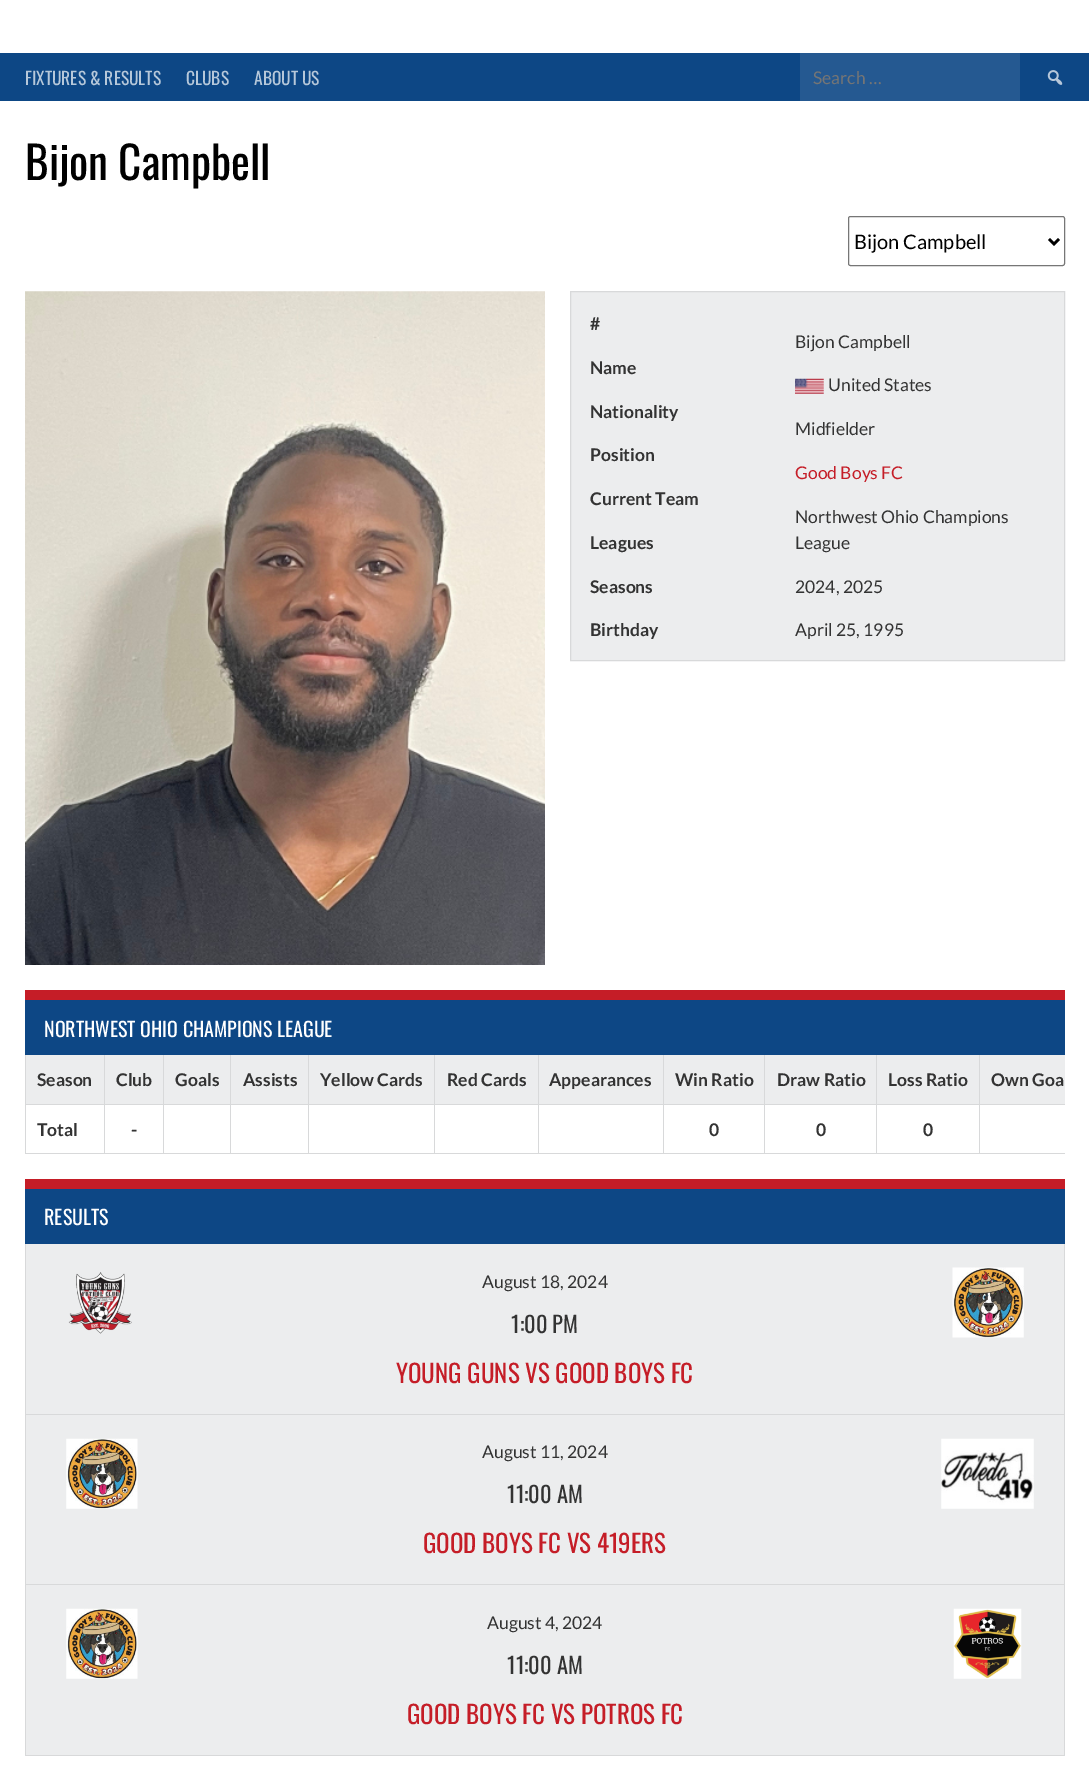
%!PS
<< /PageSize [1089 1771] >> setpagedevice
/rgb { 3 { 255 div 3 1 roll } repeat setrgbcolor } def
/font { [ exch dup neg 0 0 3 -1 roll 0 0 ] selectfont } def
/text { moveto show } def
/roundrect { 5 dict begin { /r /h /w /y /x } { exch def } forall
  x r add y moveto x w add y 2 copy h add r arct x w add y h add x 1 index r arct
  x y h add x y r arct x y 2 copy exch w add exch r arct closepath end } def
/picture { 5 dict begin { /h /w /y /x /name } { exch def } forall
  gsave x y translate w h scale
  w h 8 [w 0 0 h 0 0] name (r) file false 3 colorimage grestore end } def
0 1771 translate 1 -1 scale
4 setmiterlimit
255 255 255 rgb
0 0 1089 1771 rectfill
13 71 133 rgb
0 53 1089 48 rectfill
37 89 145 rgb
800 53 220 48 rectfill
(img_01.rgb) 1047 70 16 15 picture
118 118 118 rgb
848.5 216.5 216 49 2 roundrect stroke
0 0 0 rgb
2.5 setlinewidth
1049 239 moveto 5 5 rlineto 5 -5 rlineto stroke
(img_02.rgb) 25 291 520 674 picture
236 237 238 rgb
570.5 291.5 moveto 494 0 rlineto 0 369 rlineto -494 0 rlineto closepath gsave fill grestore
216 217 218 rgb
1 setlinewidth
stroke
(img_03.rgb) 795 378 29 16 picture
25 1153 1040 1 rectfill
25 1054 1 100 rectfill
236 237 238 rgb
26 1055 1039 49 rectfill
216 217 218 rgb
979 1104 86 1 rectfill
979 1104 1 50 rectfill
876 1104 104 1 rectfill
876 1104 1 50 rectfill
764 1104 114 1 rectfill
764 1104 1 50 rectfill
663 1104 102 1 rectfill
663 1104 1 50 rectfill
538 1104 126 1 rectfill
538 1104 1 50 rectfill
434 1104 105 1 rectfill
434 1104 1 50 rectfill
308 1104 127 1 rectfill
308 1104 1 50 rectfill
230 1104 79 1 rectfill
230 1104 1 50 rectfill
163 1104 68 1 rectfill
163 1104 1 50 rectfill
104 1104 60 1 rectfill
104 1104 1 50 rectfill
25 1104 80 1 rectfill
104 1054 1 51 rectfill
163 1054 1 51 rectfill
230 1054 1 51 rectfill
308 1054 1 51 rectfill
434 1054 1 51 rectfill
538 1054 1 51 rectfill
663 1054 1 51 rectfill
764 1054 1 51 rectfill
876 1054 1 51 rectfill
979 1054 1 51 rectfill
13 71 133 rgb
25 1000 1040 55 rectfill
197 29 39 rgb
25 990 1040 10 rectfill
216 217 218 rgb
1064 1243 1 513 rectfill
25 1755 1040 1 rectfill
25 1243 1 513 rectfill
13 71 133 rgb
25 1189 1040 55 rectfill
197 29 39 rgb
25 1179 1040 10 rectfill
236 237 238 rgb
26 1244 1038 511 rectfill
(img_04.rgb) 68 1272 64 62 picture
(img_05.rgb) 952 1267 72 71 picture
216 217 218 rgb
25 1414 1040 1 rectfill
(img_06.rgb) 66 1438 72 71 picture
(img_07.rgb) 941 1438 93 71 picture
25 1584 1040 1 rectfill
(img_08.rgb) 66 1608 72 71 picture
(img_09.rgb) 953 1608 69 71 picture
/Oswald-Regular 17.5 font
182 200 218 rgb
(FIXTURES & RESULTS) 25 85 text
(CLUBS) 186 85 text
(ABOUT US) 254 85 text
/Lato-Regular 17.5 font
117 117 117 rgb
(Search …) 813 84 text
/Oswald-Regular 45 font
0 0 0 rgb
(Bijon Campbell) 25 180 text
/Lato-Regular 20 font
(Bijon Campbell) 854 249 text
/Lato-Bold 17.5 font
51 51 51 rgb
(#) 590 330 text
/Lato-Regular 17.5 font
(Bijon Campbell) 795 348 text
/Lato-Bold 17.5 font
(Name) 590 374 text
/Lato-Regular 17.5 font
(United States) 828 391 text
/Lato-Bold 17.5 font
(Nationality) 590 418 text
/Lato-Regular 17.5 font
(Midfielder) 795 435 text
/Lato-Bold 17.5 font
(Position) 590 461 text
/Lato-Regular 17.5 font
197 29 39 rgb
(Good Boys FC) 795 479 text
/Lato-Bold 17.5 font
51 51 51 rgb
(Current Team) 590 505 text
(Leagues) 590 549 text
/Lato-Regular 17.5 font
(Northwest Ohio Champions) 795 523 text
(League) 795 549 text
/Lato-Bold 17.5 font
(Seasons) 590 593 text
/Lato-Regular 17.5 font
(2024, 2025) 795 593 text
/Lato-Bold 17.5 font
(Birthday) 590 636 text
/Lato-Regular 17.5 font
(April 25, 1995) 795 636 text
/Oswald-Regular 20 font
255 255 255 rgb
(NORTHWEST OHIO CHAMPIONS LEAGUE) 44 1037 text
/Lato-Bold 17.5 font
51 51 51 rgb
(Season) 37 1086 text
(Club) 116 1086 text
(Goals) 175 1086 text
(Assists) 243 1086 text
(Yellow Cards) 320 1086 text
(Red Cards) 447 1086 text
(Appearances) 549 1086 text
(Win Ratio) 675 1086 text
(Draw Ratio) 777 1086 text
(Loss Ratio) 888 1086 text
(Own Goa) 991 1086 text
(Total) 37 1136 text
(-) 131 1136 text
(0) 709 1136 text
(0) 816 1136 text
(0) 923 1136 text
/Oswald-Regular 20 font
255 255 255 rgb
(RESULTS) 44 1225 text
/Lato-Regular 17.5 font
51 51 51 rgb
(August 18, 2024) 482 1288 text
/Oswald-Regular 22.5 font
(1:00 PM) 511 1333 text
/Oswald-Regular 25 font
197 29 39 rgb
(YOUNG GUNS VS GOOD BOYS FC) 396 1383 text
/Lato-Regular 17.5 font
51 51 51 rgb
(August 11, 2024) 482 1458 text
/Oswald-Regular 22.5 font
(11:00 AM) 507 1503 text
/Oswald-Regular 25 font
197 29 39 rgb
(GOOD BOYS FC VS 419ERS) 423 1553 text
/Lato-Regular 17.5 font
51 51 51 rgb
(August 4, 2024) 487 1629 text
/Oswald-Regular 22.5 font
(11:00 AM) 507 1674 text
/Oswald-Regular 25 font
197 29 39 rgb
(GOOD BOYS FC VS POTROS FC) 407 1724 text
showpage
